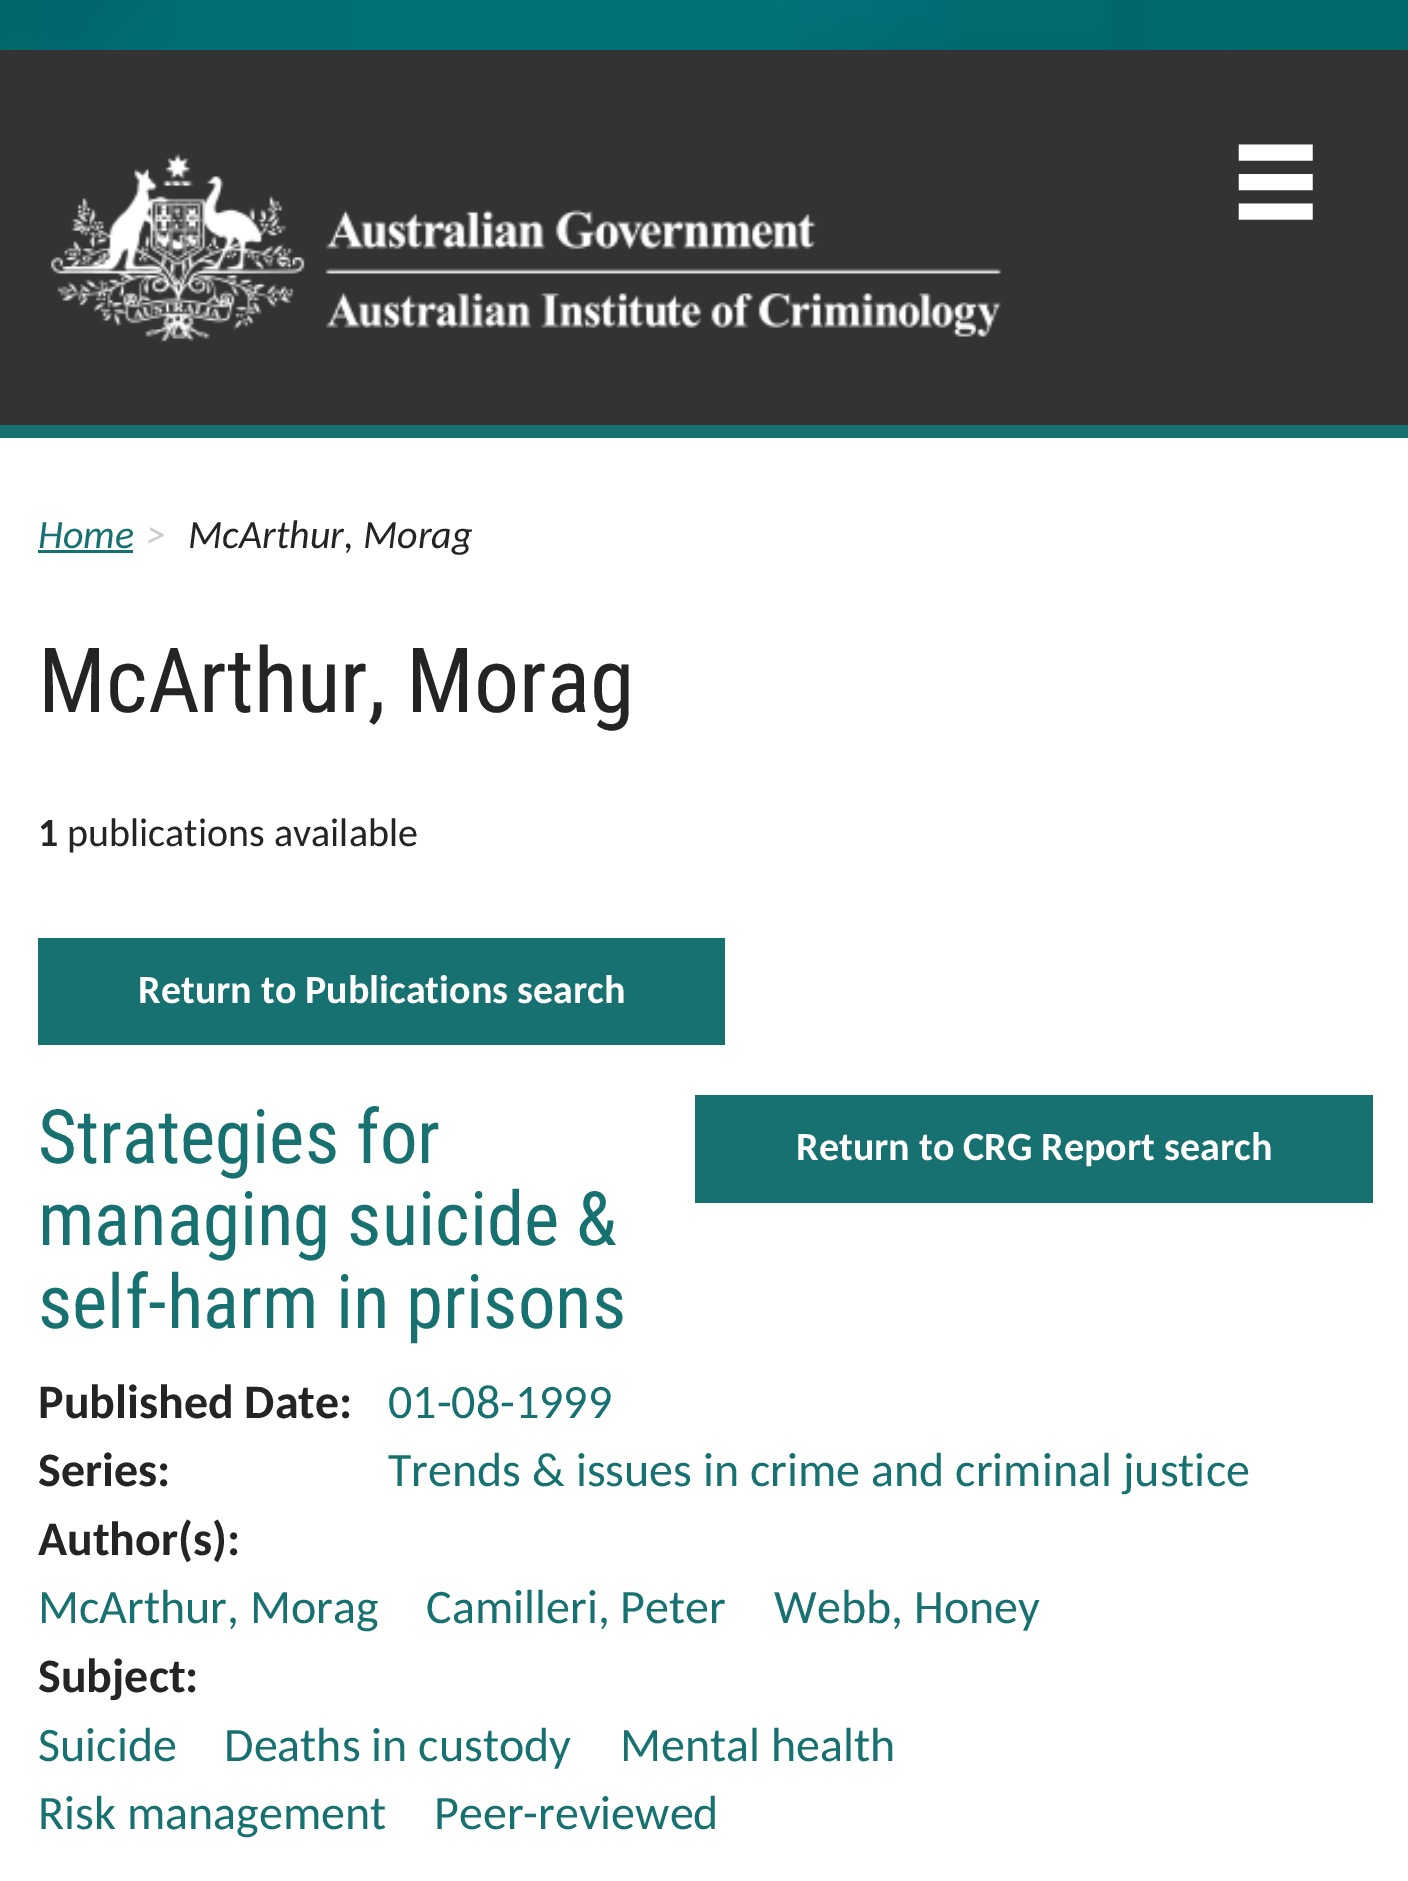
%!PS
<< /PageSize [1408 1881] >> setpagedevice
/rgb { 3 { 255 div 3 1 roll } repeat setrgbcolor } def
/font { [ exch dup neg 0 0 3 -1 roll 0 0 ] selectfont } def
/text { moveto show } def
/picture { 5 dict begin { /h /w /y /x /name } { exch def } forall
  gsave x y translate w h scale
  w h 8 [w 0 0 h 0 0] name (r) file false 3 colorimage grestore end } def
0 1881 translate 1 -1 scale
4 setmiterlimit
255 255 255 rgb
0 0 1408 1881 rectfill
(img_01.rgb) 0 0 1408 50 picture
51 51 51 rgb
0 50 1408 375 rectfill
(img_02.rgb) 50 153 952 189 picture
23 113 112 rgb
0 425 1408 13 rectfill
38 550 95 3 rectfill
38 938 687 107 rectfill
695 1095 678 108 rectfill
/Carlito-Bold 176 font
255 255 255 rgb
(≡) 1232 238 text
/Carlito-Italic 40 font
23 113 112 rgb
(Home) 38 548 text
204 204 204 rgb
(>) 146 548 text
36 36 36 rgb
(McArthur, Morag) 188 548 text
/RobotoCondensed-Regular 90 font
(McArthur, Morag) 38 712 text
/Carlito-Bold 40 font
(1) 38 846 text
/Carlito-Regular 40 font
(publications available) 67 846 text
/Carlito-Bold 40 font
255 255 255 rgb
(Return to Publications search) 138 1003 text
(Return to CRG Report search) 796 1160 text
/RobotoCondensed-Regular 75 font
23 113 112 rgb
(Strategies for) 38 1163 text
(managing suicide &) 38 1245 text
(self-harm in prisons) 38 1328 text
/Carlito-Bold 48 font
36 36 36 rgb
(Published Date:) 38 1418 text
/Carlito-Regular 48 font
23 113 112 rgb
(01-08-1999) 388 1418 text
/Carlito-Bold 48 font
36 36 36 rgb
(Series:) 38 1486 text
/Carlito-Regular 48 font
23 113 112 rgb
(Trends & issues in crime and criminal justice) 388 1486 text
/Carlito-Bold 48 font
36 36 36 rgb
(Author\(s\):) 38 1555 text
/Carlito-Regular 48 font
23 113 112 rgb
(McArthur, Morag) 38 1623 text
(Camilleri, Peter) 426 1623 text
(Webb, Honey) 774 1623 text
/Carlito-Bold 48 font
36 36 36 rgb
(Subject:) 38 1692 text
/Carlito-Regular 48 font
23 113 112 rgb
(Suicide) 38 1761 text
(Deaths in custody) 224 1761 text
(Mental health) 620 1761 text
(Risk management) 38 1829 text
(Peer-reviewed) 434 1829 text
showpage
